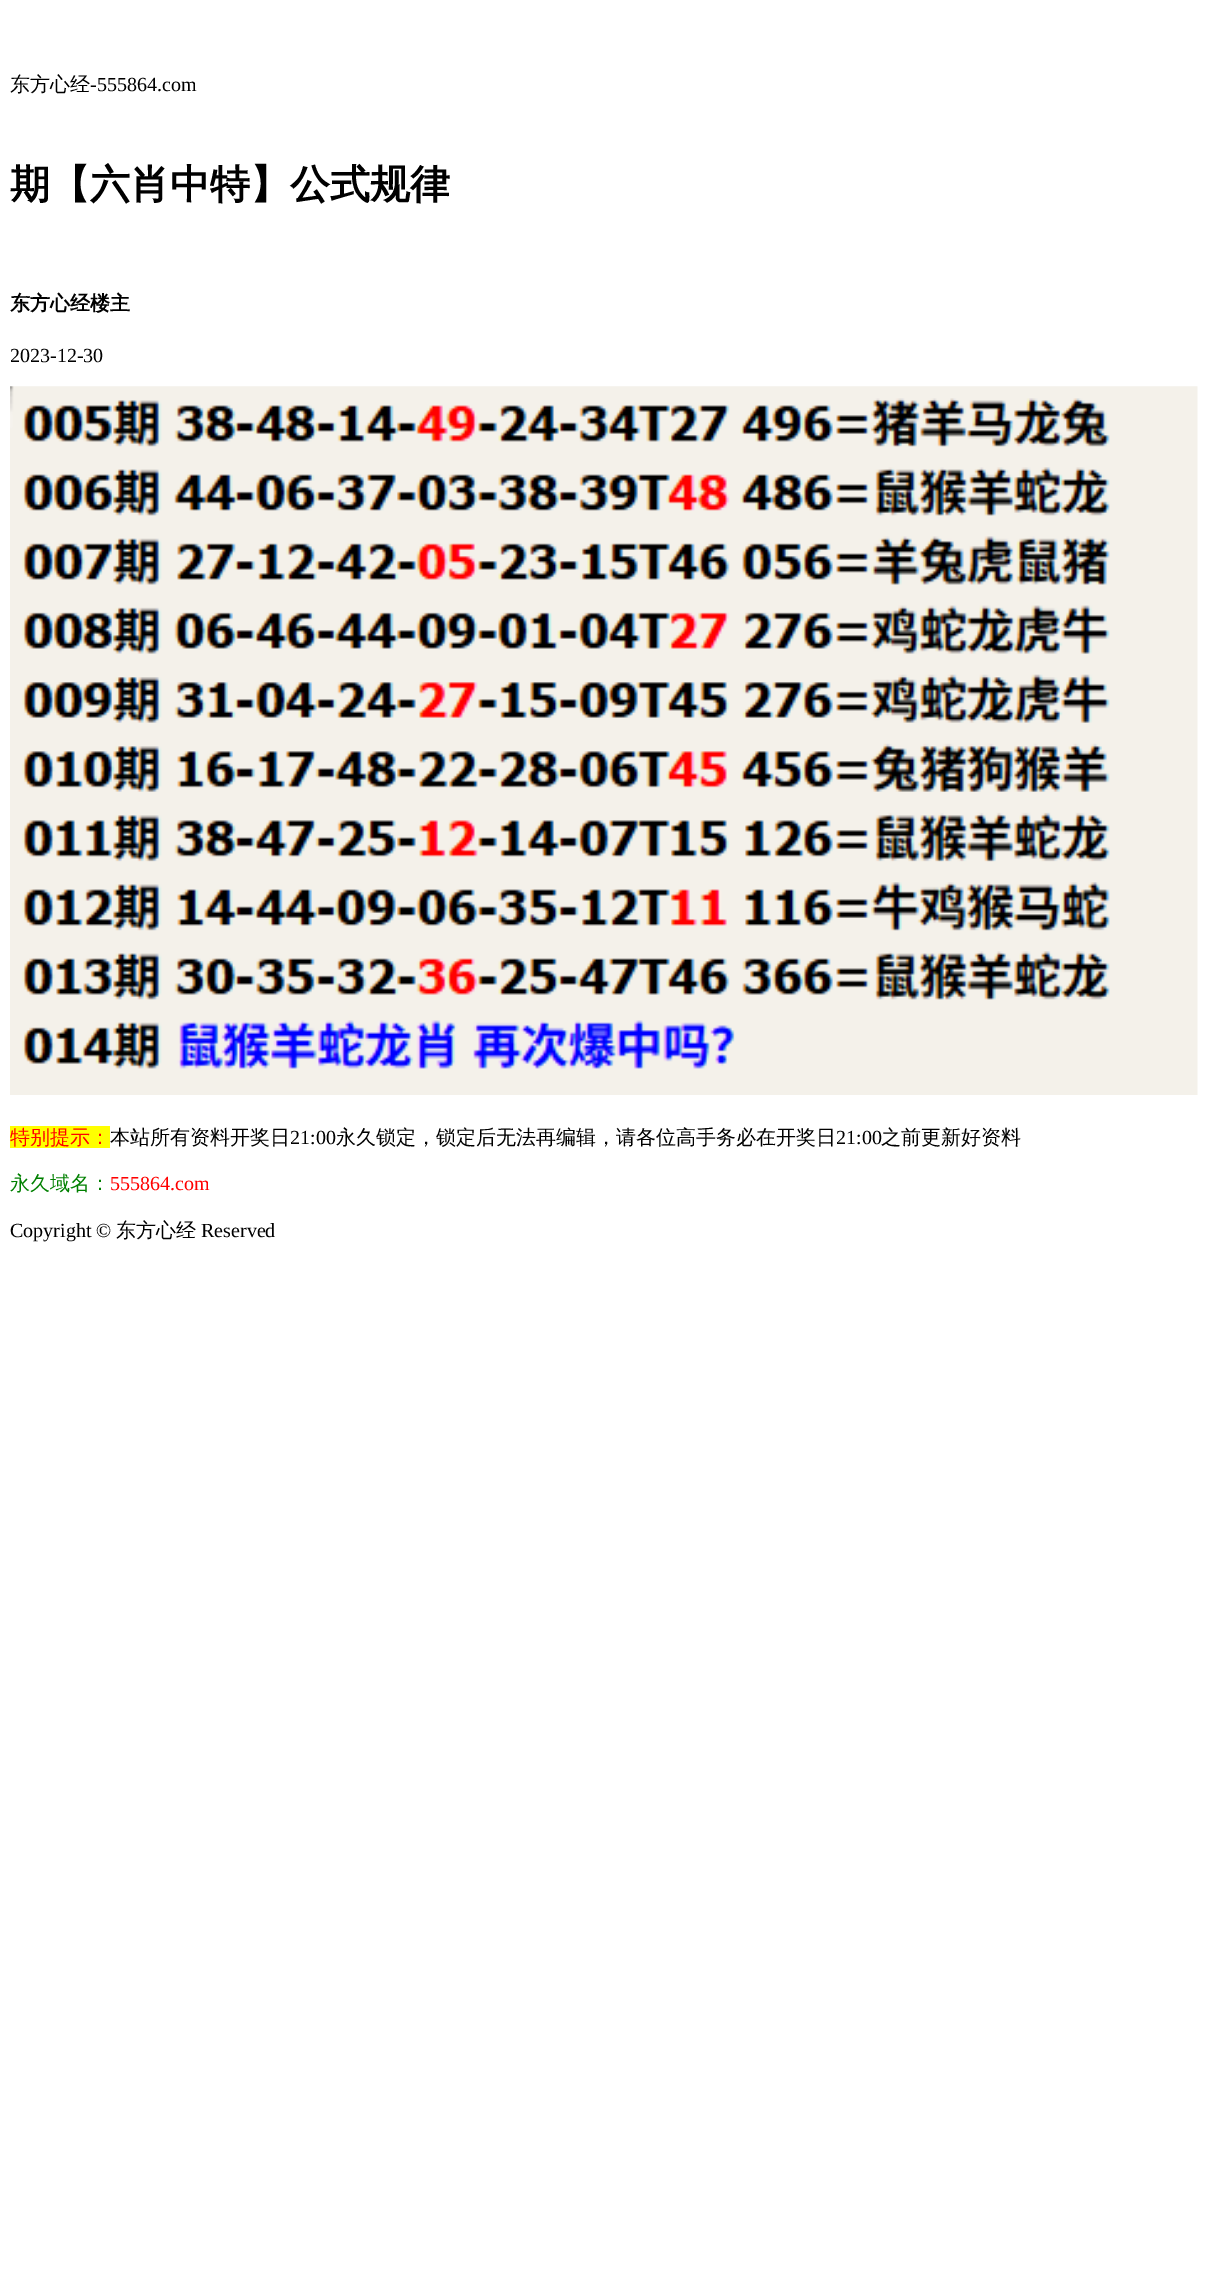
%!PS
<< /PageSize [1207 2286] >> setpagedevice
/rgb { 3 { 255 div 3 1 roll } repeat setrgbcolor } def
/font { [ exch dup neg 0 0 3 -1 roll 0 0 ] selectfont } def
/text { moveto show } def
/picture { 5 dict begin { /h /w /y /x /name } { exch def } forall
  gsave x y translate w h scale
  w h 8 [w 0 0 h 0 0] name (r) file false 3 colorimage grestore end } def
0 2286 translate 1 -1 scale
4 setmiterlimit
255 255 255 rgb
0 0 1207 2286 rectfill
(img_01.rgb) 10 386 1188 709 picture
255 255 0 rgb
10 1126 100 22 rectfill
/WenQuanYiZenHei-Medium 20 font
0 0 0 rgb
(东方心经) 10 91 text
/LiberationSerif-Regular 20 font
(-555864.com) 90 91 text
/WenQuanYiZenHei-Bold 40 font
(期【六肖中特】公式规律) 10 198 text
/WenQuanYiZenHei-Bold 20 font
(东方心经楼主) 10 310 text
/LiberationSerif-Regular 20 font
(2023-12-30) 10 362 text
/WenQuanYiZenHei-Medium 20 font
255 0 0 rgb
(特别提示：) 10 1144 text
0 0 0 rgb
(本站所有资料开奖日) 110 1144 text
/LiberationSerif-Regular 20 font
(21:00) 290 1144 text
/WenQuanYiZenHei-Medium 20 font
(永久锁定，锁定后无法再编辑，请各位高手务必在开奖日) 336 1144 text
/LiberationSerif-Regular 20 font
(21:00) 836 1144 text
/WenQuanYiZenHei-Medium 20 font
(之前更新好资料) 881 1144 text
0 128 0 rgb
(永久域名：) 10 1190 text
/LiberationSerif-Regular 20 font
255 0 0 rgb
(555864.com) 110 1190 text
0 0 0 rgb
(Copyright ©) 10 1237 text
/WenQuanYiZenHei-Medium 20 font
(东方心经) 116 1237 text
/LiberationSerif-Regular 20 font
(Reserved) 201 1237 text
showpage
